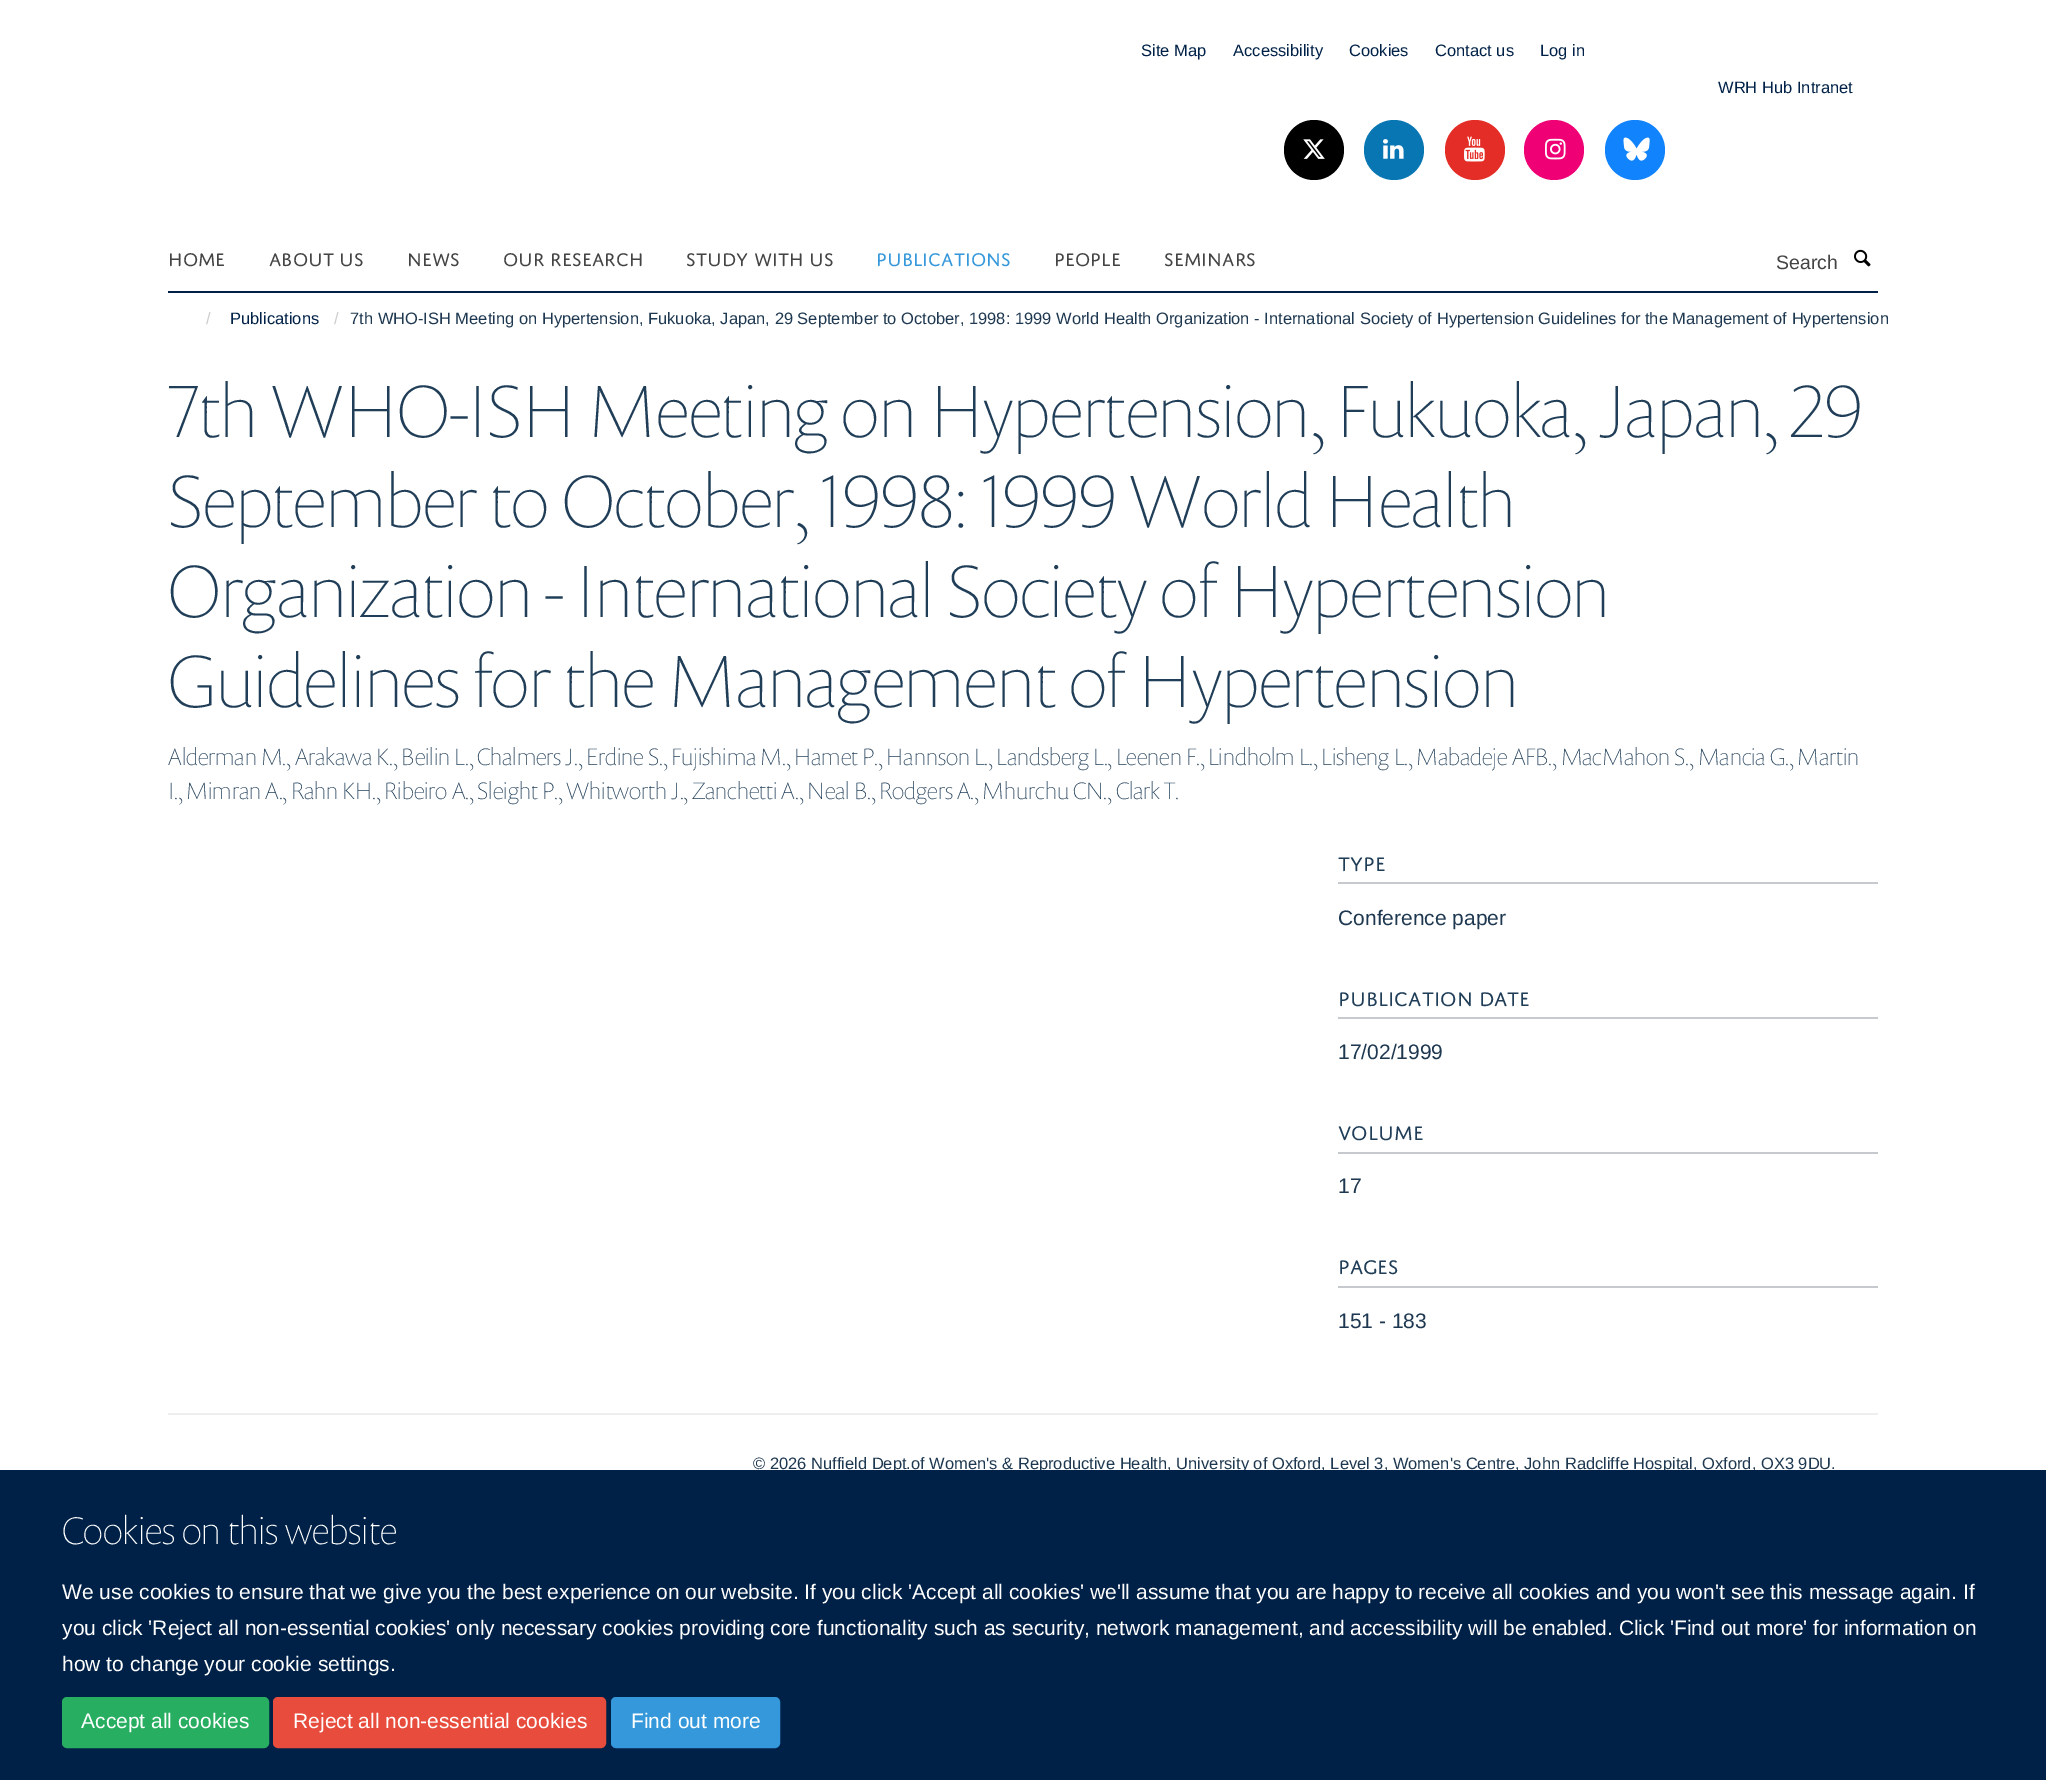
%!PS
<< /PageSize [2046 1780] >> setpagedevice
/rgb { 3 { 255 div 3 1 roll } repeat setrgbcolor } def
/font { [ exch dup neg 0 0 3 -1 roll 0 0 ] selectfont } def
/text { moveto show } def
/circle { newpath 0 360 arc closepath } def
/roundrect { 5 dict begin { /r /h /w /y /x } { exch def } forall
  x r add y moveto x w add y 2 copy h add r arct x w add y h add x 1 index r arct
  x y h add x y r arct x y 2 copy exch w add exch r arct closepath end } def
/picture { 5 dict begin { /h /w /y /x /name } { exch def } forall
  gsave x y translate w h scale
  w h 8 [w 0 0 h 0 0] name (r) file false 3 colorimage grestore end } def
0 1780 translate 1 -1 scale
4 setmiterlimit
255 255 255 rgb
0 0 2046 1780 rectfill
0 0 0 rgb
1314 150 30 circle fill
(img_01.rgb) 1303 139 22 20 picture
9 118 180 rgb
1394 150 30 circle fill
(img_02.rgb) 1383 139 21 20 picture
229 45 39 rgb
1475 150 30 circle fill
(img_03.rgb) 1464 136 21 26 picture
239 0 116 rgb
1554 150 30 circle fill
(img_04.rgb) 1545 138 21 22 picture
17 131 252 rgb
1635 150 30 circle fill
(img_05.rgb) 1623 137 27 24 picture
0 33 71 rgb
168 291 1710 2 rectfill
(img_06.rgb) 1854 249 17 18 picture
198 202 207 rgb
1338 882 540 2 rectfill
1338 1017 540 2 rectfill
1338 1152 540 2 rectfill
1338 1286 540 2 rectfill
238 238 238 rgb
168 1413 1710 2 rectfill
/LiberationSans-Regular 16.5 font
0 33 71 rgb
(Site Map) 1141 56 text
(Accessibility) 1233 56 text
(Cookies) 1349 56 text
(Contact us) 1435 56 text
(Log in) 1540 56 text
(WRH Hub Intranet) 1718 93 text
/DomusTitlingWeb-Regular 19.5 font
68 68 68 rgb
(HOME) 168 266 text
(ABOUT US) 269 266 text
(NEWS) 407 266 text
(OUR RESEARCH) 503 266 text
(STUDY WITH US) 686 266 text
52 152 219 rgb
(PUBLICATIONS) 876 266 text
68 68 68 rgb
(PEOPLE) 1054 266 text
(SEMINARS) 1164 266 text
/LiberationSans-Regular 19.5 font
(Search) 1776 269 text
/LiberationSans-Regular 16.5 font
204 204 204 rgb
(/) 206 324 text
0 33 71 rgb
(Publications) 230 324 text
204 204 204 rgb
(/) 334 324 text
29 56 80 rgb
(7th WHO-ISH Meeting on Hypertension, Fukuoka, Japan, 29 September to October, 1998: 1999 World Health Organization - International Society of Hypertension Guidelines for the Management of Hypertension) 350 324 text
/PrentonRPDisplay-Thin 75 font
32 62 88 rgb
(7th WHO-ISH Meeting on Hypertension, Fukuoka, Japan, 29) 168 437 text
(September to October, 1998: 1999 World Health) 168 527 text
(Organization - International Society of Hypertension) 168 617 text
(Guidelines for the Management of Hypertension) 168 707 text
/PrentonRPDisplay-Thin 24 font
(Alderman M., Arakawa K., Beilin L., Chalmers J., Erdine S., Fujishima M., Hamet P., Hannson L., Landsberg L., Leenen F., Lindholm L., Lisheng L., Mabadeje AFB., MacMahon S., Mancia G., Martin) 168 765 text
(I., Mimran A., Rahn KH., Ribeiro A., Sleight P., Whitworth J., Zanchetti A., Neal B., Rodgers A., Mhurchu CN., Clark T.) 168 799 text
/DomusTitlingWeb-Regular 21 font
(TYPE) 1338 871 text
/LiberationSans-Regular 21 font
29 56 80 rgb
(Conference paper) 1338 925 text
/DomusTitlingWeb-Regular 21 font
32 62 88 rgb
(PUBLICATION DATE) 1338 1006 text
/LiberationSans-Regular 21 font
29 56 80 rgb
(17/02/1999) 1338 1059 text
/DomusTitlingWeb-Regular 21 font
32 62 88 rgb
(VOLUME) 1338 1140 text
/LiberationSans-Regular 21 font
29 56 80 rgb
(17) 1338 1193 text
/DomusTitlingWeb-Regular 21 font
32 62 88 rgb
(PAGES) 1338 1274 text
/LiberationSans-Regular 21 font
29 56 80 rgb
(151 - 183) 1338 1328 text
/LiberationSans-Regular 16.5 font
(© 2026 Nuffield Dept.of Women's & Reproductive Health, University of Oxford, Level 3, Women's Centre, John Radcliffe Hospital, Oxford, OX3 9DU.) 753 1469 text
0 33 71 rgb
0 1470 2046 310 rectfill
/PrentonRPDisplay-Thin 39 font
255 255 255 rgb
(Cookies on this website) 62 1544 text
/LiberationSans-Regular 21 font
(We use cookies to ensure that we give you the best experience on our website. If you click 'Accept all cookies' we'll assume that you are happy to receive all cookies and you won't see this message again. If) 62 1599 text
(you click 'Reject all non-essential cookies' only necessary cookies providing core functionality such as security, network management, and accessibility will be enabled. Click 'Find out more' for information on) 62 1635 text
(how to change your cookie settings.) 62 1671 text
39 174 96 rgb
63 1698 205 49 4 roundrect gsave fill grestore
2 setlinewidth
stroke
255 255 255 rgb
(Accept all cookies) 81 1728 text
231 76 60 rgb
274 1698 331 49 4 roundrect gsave fill grestore
stroke
255 255 255 rgb
(Reject all non-essential cookies) 293 1728 text
52 152 219 rgb
612 1698 167 49 4 roundrect gsave fill grestore
stroke
255 255 255 rgb
(Find out more) 631 1728 text
showpage
